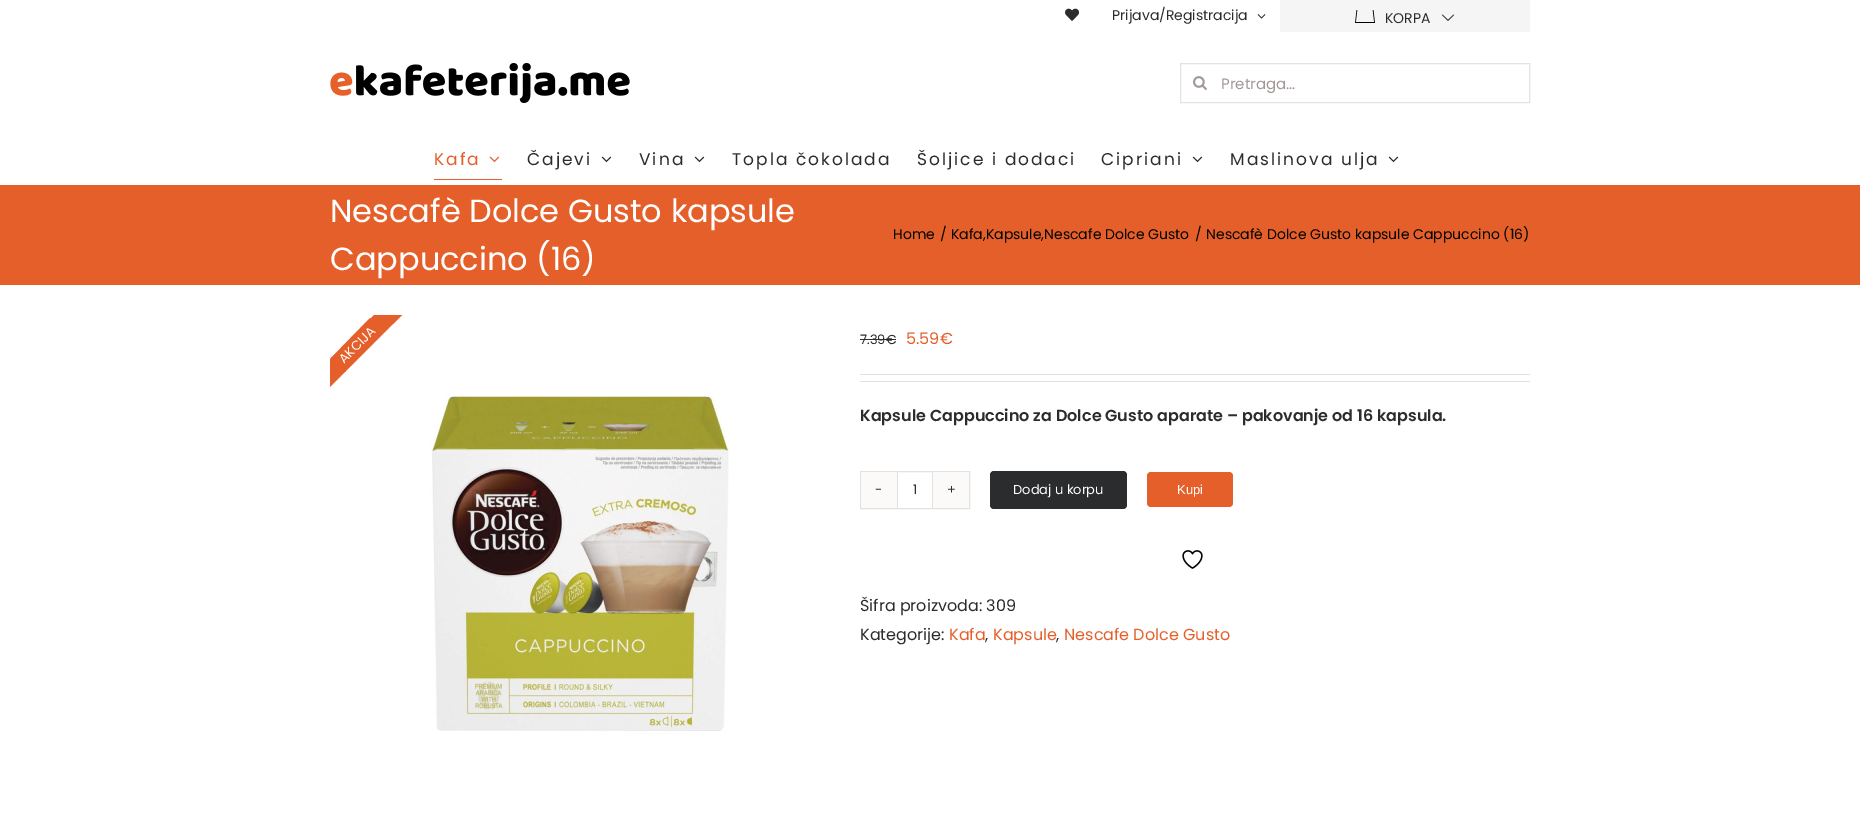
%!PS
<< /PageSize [1860 814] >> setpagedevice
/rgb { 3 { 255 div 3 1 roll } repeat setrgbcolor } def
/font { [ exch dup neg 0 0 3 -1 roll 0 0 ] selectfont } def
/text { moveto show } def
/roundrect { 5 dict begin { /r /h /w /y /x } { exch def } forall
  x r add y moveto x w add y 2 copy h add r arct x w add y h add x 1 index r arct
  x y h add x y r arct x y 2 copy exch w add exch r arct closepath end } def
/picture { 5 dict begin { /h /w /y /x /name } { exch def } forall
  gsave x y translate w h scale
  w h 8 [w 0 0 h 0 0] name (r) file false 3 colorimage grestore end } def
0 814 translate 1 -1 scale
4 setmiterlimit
255 255 255 rgb
0 0 1860 814 rectfill
(img_01.rgb) 1065 8 14 13 picture
(img_02.rgb) 1257 14 9 5 picture
245 245 245 rgb
1280 0 250 32 rectfill
(img_03.rgb) 1355 10 20 13 picture
(img_04.rgb) 1442 14 12 7 picture
(img_05.rgb) 330 63 300 40 picture
227 227 227 rgb
1180.5 63.5 349 39 rectstroke
(img_06.rgb) 1193 76 14 14 picture
(img_07.rgb) 489 156 11 7 picture
229 95 42 rgb
434 179 68 1 rectfill
(img_08.rgb) 601 156 11 7 picture
(img_08.rgb) 694 156 11 7 picture
(img_08.rgb) 1192 156 11 7 picture
(img_08.rgb) 1388 156 11 7 picture
0 185 1860 100 rectfill
331 358 moveto 39 -40 rlineto 14 15 rlineto -39 39 rlineto closepath fill
(img_09.rgb) 428 395 302 336 picture
42 44 46 rgb
860 339 36 1 rectfill
226 226 226 rgb
860 374 670 1 rectfill
860 381 670 1 rectfill
860.5 471.5 109 37 rectstroke
251 250 249 rgb
861 472 36 36 rectfill
226 226 226 rgb
932 472 1 36 rectfill
897 472 1 36 rectfill
251 250 249 rgb
933 472 36 36 rectfill
42 44 46 rgb
990 471 137 38 4 roundrect fill
229 95 42 rgb
1147 472 86 35 4 roundrect fill
(img_10.rgb) 1182 550 21 19 picture
/Poppins-Regular 14 font
42 44 46 rgb
(Prijava/Registracija) 1112 20 text
(KORPA) 1385 23 text
/Poppins-Regular 15 font
163 151 151 rgb
(Pretraga...) 1221 89 text
/Poppins-Regular 17 font
229 95 42 rgb
434 165 moveto 2 0 (Kafa) ashow
42 44 46 rgb
527 165 moveto 2 0 (Čajevi) ashow
639 165 moveto 2 0 (Vina) ashow
732 165 moveto 2 0 (Topla čokolada) ashow
917 165 moveto 2 0 (Šoljice i dodaci) ashow
1101 165 moveto 2 0 (Cipriani) ashow
1230 165 moveto 2 0 (Maslinova ulja) ashow
/Poppins-Regular 32 font
255 255 255 rgb
(Nescafè Dolce Gusto kapsule) 330 222 text
(Cappuccino \(16\)) 330 270 text
/Poppins-Regular 14 font
0 0 0 rgb
(Home) 893 239 text
(/) 940 239 text
(Kafa,Kapsule,Nescafe Dolce Gusto) 951 239 text
(/) 1195 239 text
(Nescafè Dolce Gusto kapsule Cappuccino \(16\)) 1206 239 text
/Poppins-Regular 13 font
255 255 255 rgb
gsave 344 364 translate -45 rotate 0 0 moveto (AKCIJA) show grestore
gsave
330 315 1200 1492 rectclip
229 95 42 rgb
370 319 moveto 39 -39 rlineto 14 14 rlineto -39 39 rlineto closepath fill
293 396 moveto 39 -39 rlineto 14 14 rlineto -39 39 rlineto closepath fill
grestore
42 44 46 rgb
(7.39€) 860 344 text
/Poppins-Regular 16 font
229 95 42 rgb
(5.59€) 906 344 text
/Poppins-SemiBold 16 font
42 44 46 rgb
(Kapsule Cappuccino za Dolce Gusto aparate – pakovanje od 16 kapsula.) 860 421 text
/Poppins-Regular 13 font
(-) 875 494 text
(1) 913 494 text
(+) 947 494 text
255 255 255 rgb
(Dodaj u korpu) 1013 494 text
/LiberationSans-Regular 13 font
(Kupi) 1177 494 text
/Poppins-Regular 16 font
42 44 46 rgb
(Šifra proizvoda: 309) 860 611 text
(Kategorije:) 860 640 text
229 95 42 rgb
(Kafa) 949 640 text
42 44 46 rgb
(,) 985 640 text
229 95 42 rgb
(Kapsule) 993 640 text
42 44 46 rgb
(,) 1056 640 text
229 95 42 rgb
(Nescafe Dolce Gusto) 1064 640 text
showpage
